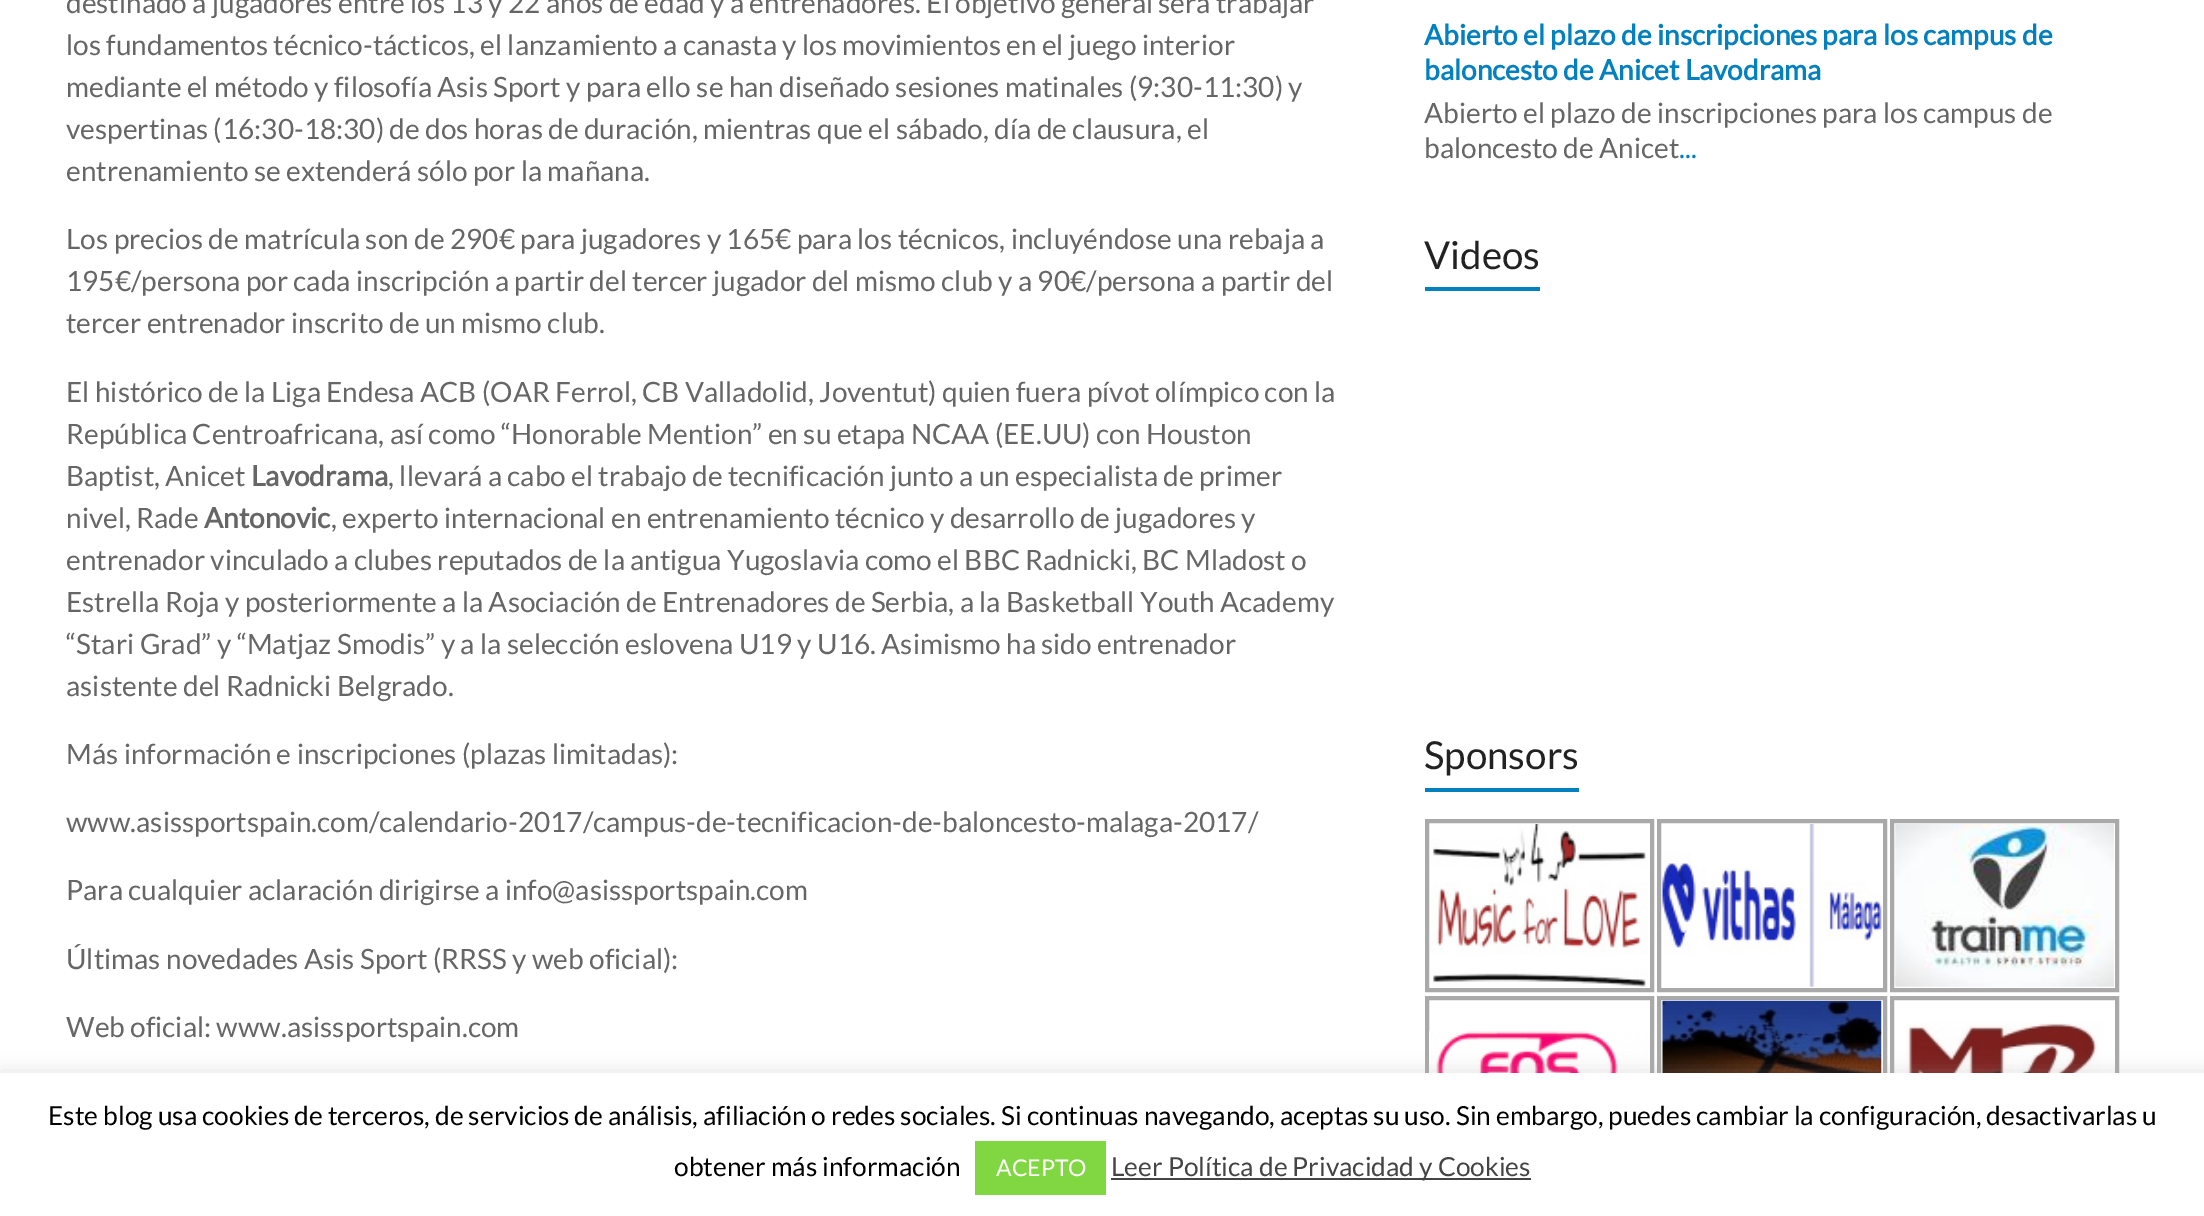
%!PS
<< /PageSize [2204 1216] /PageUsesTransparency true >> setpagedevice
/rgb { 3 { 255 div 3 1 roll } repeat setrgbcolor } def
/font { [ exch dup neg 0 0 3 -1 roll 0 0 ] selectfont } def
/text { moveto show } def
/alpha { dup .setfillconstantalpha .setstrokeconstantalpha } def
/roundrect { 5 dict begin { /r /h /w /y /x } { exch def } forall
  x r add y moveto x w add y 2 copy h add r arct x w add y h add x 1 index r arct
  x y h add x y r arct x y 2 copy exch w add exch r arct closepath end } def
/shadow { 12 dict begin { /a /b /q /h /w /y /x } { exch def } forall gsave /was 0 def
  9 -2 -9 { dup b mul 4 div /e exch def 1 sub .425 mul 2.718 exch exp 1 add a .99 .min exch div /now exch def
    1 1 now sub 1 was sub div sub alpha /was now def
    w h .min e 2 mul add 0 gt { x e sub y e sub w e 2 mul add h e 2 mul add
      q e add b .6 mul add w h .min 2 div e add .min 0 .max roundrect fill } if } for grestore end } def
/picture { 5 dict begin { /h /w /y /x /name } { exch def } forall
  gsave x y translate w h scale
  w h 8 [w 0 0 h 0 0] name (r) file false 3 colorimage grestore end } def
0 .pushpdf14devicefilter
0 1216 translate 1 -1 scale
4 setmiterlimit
255 255 255 rgb
0 0 2204 1216 rectfill
3 129 191 rgb
1425 287 115 4 rectfill
1425 788 154 4 rectfill
169 169 169 rgb
4 setlinewidth
1427 821 225 169 rectstroke
(img_01.rgb) 1430 824 219 163 picture
1659 821 226 169 rectstroke
(img_02.rgb) 1662 824 220 163 picture
1892 821 225 169 rectstroke
(img_03.rgb) 1895 824 219 163 picture
1427 998 225 171 rectstroke
(img_04.rgb) 1429 1031 220 42 picture
1659 998 226 171 rectstroke
(img_05.rgb) 1662 1000 220 73 picture
1892 998 225 171 rectstroke
(img_06.rgb) 1906 1022 197 51 picture
172 171 171 rgb
0 1071 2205 144 0 9 0.3 shadow
255 255 255 rgb
0 1073 2204 143 rectfill
129 215 66 rgb
975 1141 131 54 rectfill
68 68 68 rgb
1111 1178 420 2 rectfill
/Lato-Regular 28 font
102 102 102 rgb
(destinado a jugadores entre los 13 y 22 años de edad y a entrenadores. El objetivo general será trabajar) 66 13 text
(los fundamentos técnico-tácticos, el lanzamiento a canasta y los movimientos en el juego interior) 66 55 text
(mediante el método y filosofía Asis Sport y para ello se han diseñado sesiones matinales \(9:30-11:30\) y) 66 97 text
(vespertinas \(16:30-18:30\) de dos horas de duración, mientras que el sábado, día de clausura, el) 66 139 text
(entrenamiento se extenderá sólo por la mañana.) 66 181 text
(Los precios de matrícula son de 290€ para jugadores y 165€ para los técnicos, incluyéndose una rebaja a) 66 249 text
(195€/persona por cada inscripción a partir del tercer jugador del mismo club y a 90€/persona a partir del) 66 291 text
(tercer entrenador inscrito de un mismo club.) 66 333 text
(El histórico de la Liga Endesa ACB \(OAR Ferrol, CB Valladolid, Joventut\) quien fuera pívot olímpico con la) 66 402 text
(República Centroafricana, así como “Honorable Mention” en su etapa NCAA \(EE.UU\) con Houston) 66 444 text
(Baptist, Anicet) 66 486 text
/Lato-Bold 28 font
(Lavodrama) 251 486 text
/Lato-Regular 28 font
(, llevará a cabo el trabajo de tecnificación junto a un especialista de primer) 388 486 text
(nivel, Rade) 66 528 text
/Lato-Bold 28 font
(Antonovic) 204 528 text
/Lato-Regular 28 font
(, experto internacional en entrenamiento técnico y desarrollo de jugadores y) 331 528 text
(entrenador vinculado a clubes reputados de la antigua Yugoslavia como el BBC Radnicki, BC Mladost o) 66 570 text
(Estrella Roja y posteriormente a la Asociación de Entrenadores de Serbia, a la Basketball Youth Academy) 66 612 text
(“Stari Grad” y “Matjaz Smodis” y a la selección eslovena U19 y U16. Asimismo ha sido entrenador) 66 654 text
(asistente del Radnicki Belgrado.) 66 696 text
(Más información e inscripciones \(plazas limitadas\):) 66 764 text
(www.asissportspain.com/calendario-2017/campus-de-tecnificacion-de-baloncesto-malaga-2017/) 66 832 text
(Para cualquier aclaración dirigirse a info@asissportspain.com) 66 900 text
(Últimas novedades Asis Sport \(RRSS y web oficial\):) 66 969 text
(Web oficial: www.asissportspain.com) 66 1037 text
/Lato-Bold 28 font
3 129 191 rgb
(Abierto el plazo de inscripciones para los campus de) 1424 45 text
(baloncesto de Anicet Lavodrama) 1424 80 text
/Lato-Regular 28 font
102 102 102 rgb
(Abierto el plazo de inscripciones para los campus de) 1424 123 text
(baloncesto de Anicet) 1424 158 text
3 129 191 rgb
(...) 1679 158 text
/Lato-Regular 38.5 font
34 34 34 rgb
(Videos) 1424 269 text
(Sponsors) 1424 769 text
/Lato-Regular 26.25 font
0 0 0 rgb
(Este blog usa cookies de terceros, de servicios de análisis, afiliación o redes sociales. Si continuas navegando, aceptas su uso. Sin embargo, puedes cambiar la configuración, desactivarlas u) 48 1125 text
(obtener más información) 674 1176 text
/Lato-Regular 23 font
255 255 255 rgb
(ACEPTO) 996 1176 text
/Lato-Regular 26.25 font
68 68 68 rgb
(Leer Política de Privacidad y Cookies) 1111 1176 text
.poppdf14devicefilter showpage
